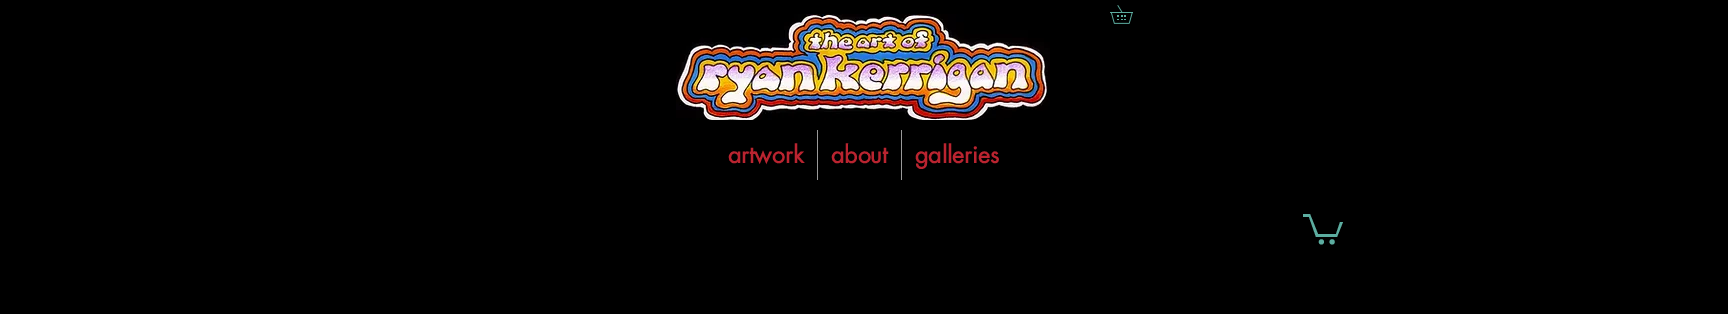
%!PS
<< /PageSize [1728 314] >> setpagedevice
/rgb { 3 { 255 div 3 1 roll } repeat setrgbcolor } def
/font { [ exch dup neg 0 0 3 -1 roll 0 0 ] selectfont } def
/text { moveto show } def
/circle { newpath 0 360 arc closepath } def
/picture { 5 dict begin { /h /w /y /x /name } { exch def } forall
  gsave x y translate w h scale
  w h 8 [w 0 0 h 0 0] name (r) file false 3 colorimage grestore end } def
0 314 translate 1 -1 scale
4 setmiterlimit
0 0 0 rgb
0 0 1728 314 rectfill
(img_01.rgb) 1110 5 23 19 picture
(img_02.rgb) 676 14 374 106 picture
153 153 153 rgb
817 130 1 50 rectfill
901 130 1 50 rectfill
92 173 160 rgb
1343 222 moveto -6 15 rlineto -21 0 rlineto -7 -20 rlineto -6 0 rlineto 0 -3 rlineto 7 0 rlineto 8 20 rlineto 18 0 rlineto 4 -12 rlineto fill
1332.1 241.9 2.6 circle fill
1321.4 241.9 2.6 circle fill
/futura-Bold 23 font
186 36 48 rgb
(artwork) 728 163 text
(about) 831 163 text
(galleries) 915 163 text
showpage
